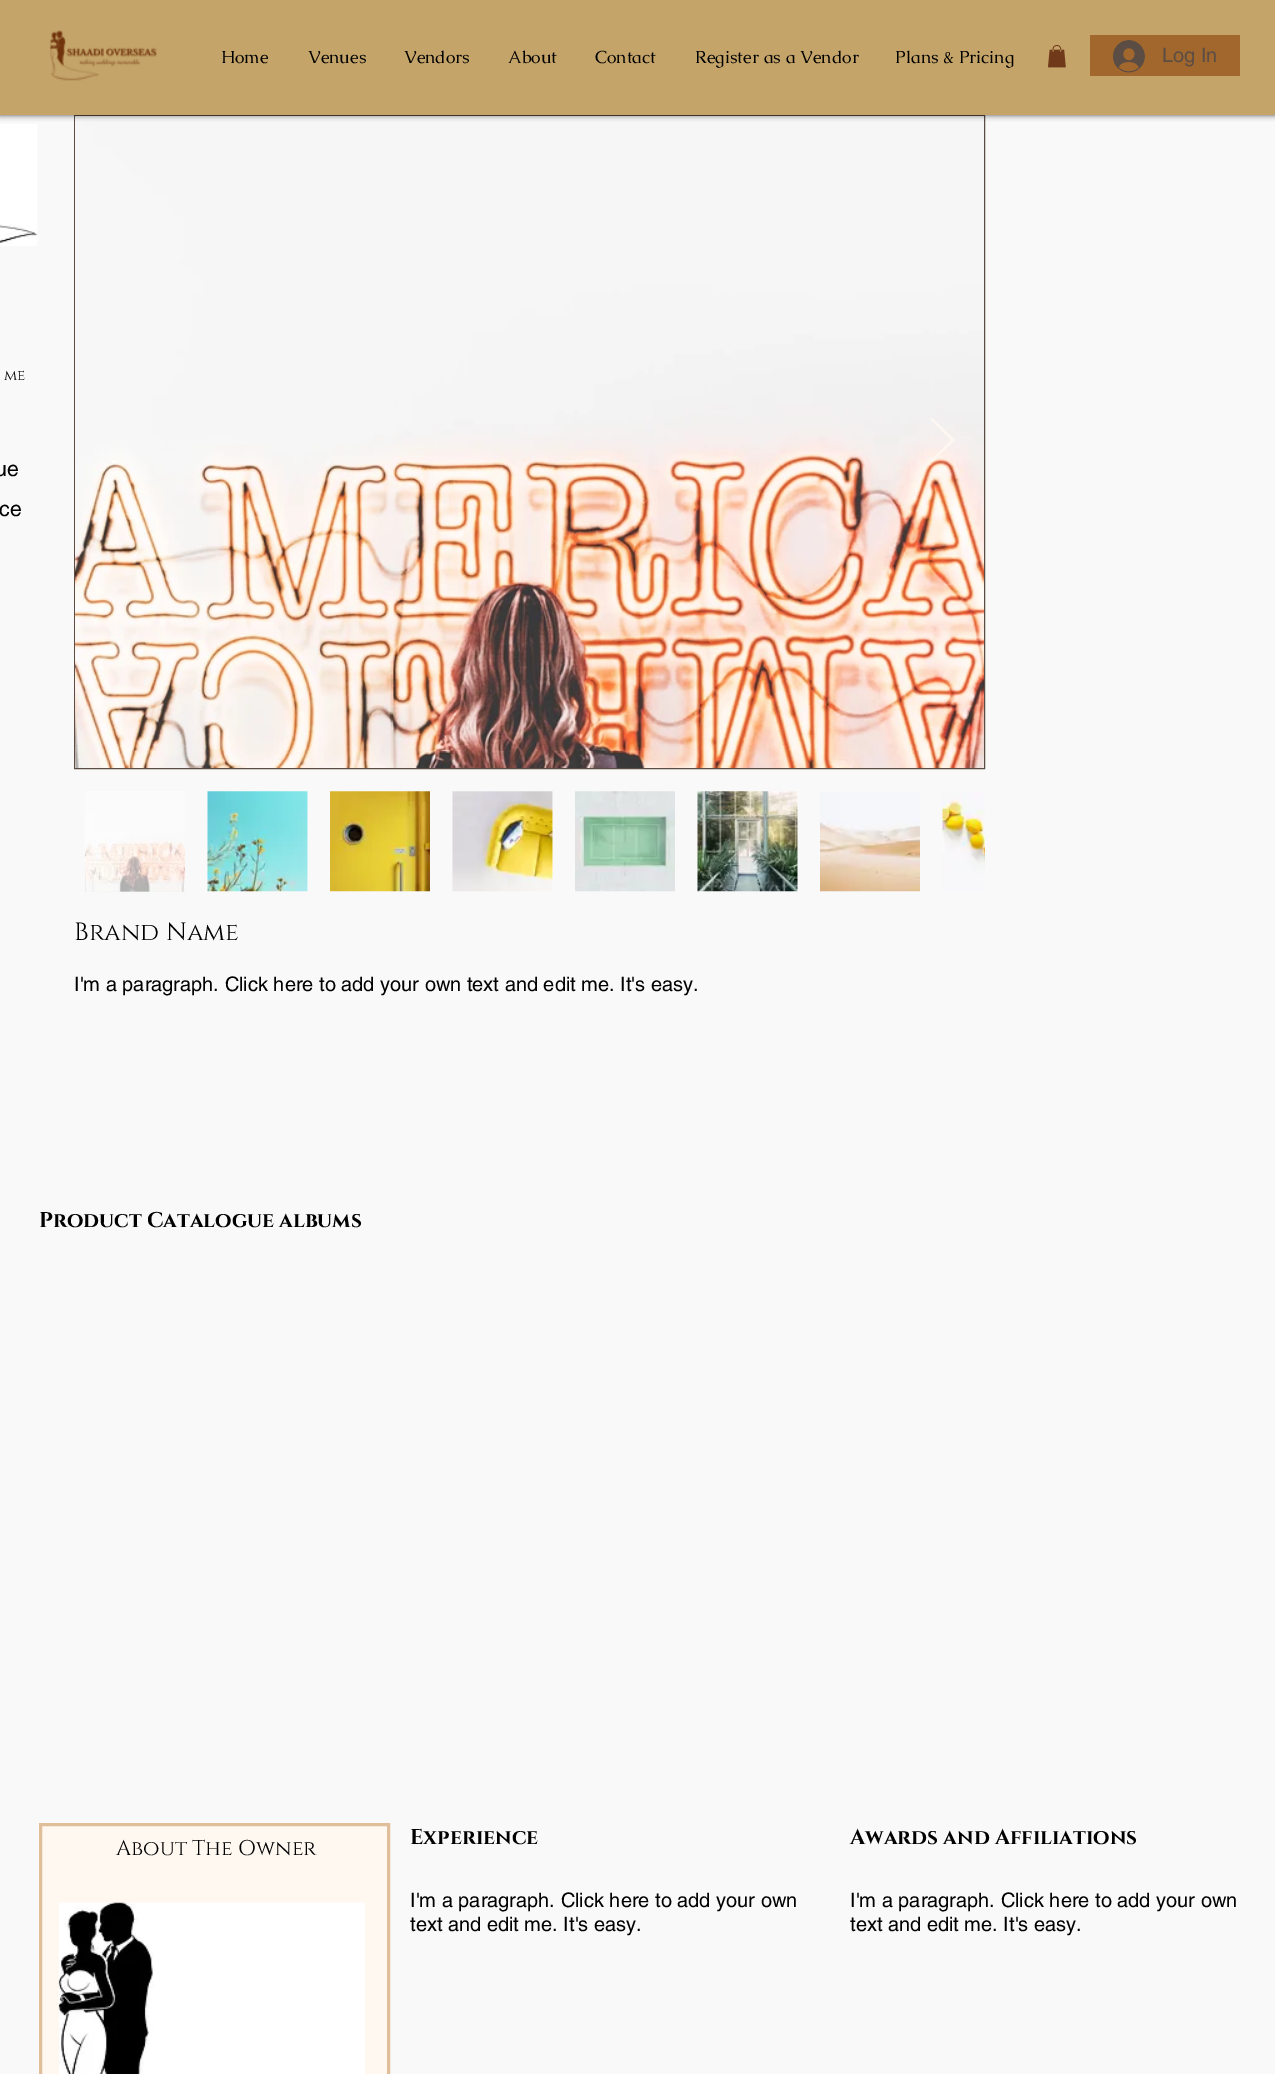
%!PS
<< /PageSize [1275 2074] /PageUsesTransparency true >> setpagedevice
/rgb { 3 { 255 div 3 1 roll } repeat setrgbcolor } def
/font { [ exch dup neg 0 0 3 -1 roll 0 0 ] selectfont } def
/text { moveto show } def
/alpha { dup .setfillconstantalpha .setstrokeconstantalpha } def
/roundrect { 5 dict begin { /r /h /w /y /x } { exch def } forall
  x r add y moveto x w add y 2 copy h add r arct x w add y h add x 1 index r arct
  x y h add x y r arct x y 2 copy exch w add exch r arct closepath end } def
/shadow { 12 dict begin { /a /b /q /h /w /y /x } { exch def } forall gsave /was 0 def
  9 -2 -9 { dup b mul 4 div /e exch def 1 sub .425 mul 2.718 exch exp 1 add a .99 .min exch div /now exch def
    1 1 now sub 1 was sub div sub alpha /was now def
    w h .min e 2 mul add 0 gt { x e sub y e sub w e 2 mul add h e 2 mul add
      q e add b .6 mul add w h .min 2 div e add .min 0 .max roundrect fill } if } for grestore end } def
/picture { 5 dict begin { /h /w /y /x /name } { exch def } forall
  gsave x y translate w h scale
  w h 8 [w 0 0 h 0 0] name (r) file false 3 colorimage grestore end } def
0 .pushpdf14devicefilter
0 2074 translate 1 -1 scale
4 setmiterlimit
249 249 249 rgb
0 0 1275 2074 rectfill
(img_04.rgb) 0 124 38 122 picture
91 77 67 rgb
74.5 115.5 910 653 rectstroke
(img_05.rgb) 75 116 909 652 picture
0 0 0 rgb
0 0 1275 115 0 3 0.7 shadow
196 164 104 rgb
0 0 1275 115 rectfill
(img_01.rgb) 49 30 108 51 picture
(img_02.rgb) 1048 45 18 23 picture
162 103 45 rgb
1090 35 150 41 rectfill
(img_03.rgb) 1113 40 32 33 picture
0.9 alpha
255 248 241 rgb
930 419 moveto 2 -1 rlineto 23 22 rlineto -23 22 rlineto -2 -1 rlineto 21 -21 rlineto closepath fill
1 alpha
(img_06.rgb) 85 791 100 101 picture
255 255 255 rgb
208 791 100 100 rectfill
(img_07.rgb) 207 791 101 101 picture
(img_08.rgb) 330 791 100 101 picture
453 791 100 100 rectfill
(img_09.rgb) 452 791 101 101 picture
(img_10.rgb) 575 791 100 101 picture
698 791 100 100 rectfill
(img_11.rgb) 697 791 101 101 picture
(img_12.rgb) 820 791 100 101 picture
(img_13.rgb) 942 791 43 100 picture
255 248 241 rgb
40.5 1824.5 moveto 348 0 rlineto 0 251 rlineto -348 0 rlineto closepath gsave fill grestore
224 190 154 rgb
3 setlinewidth
stroke
(img_14.rgb) 58 1902 307 172 picture
/Caudex-Regular 17.5 font
0 0 0 rgb
(Home) 221 63 text
(Venues) 308 63 text
(Vendors) 404 63 text
(About) 508 63 text
(Contact) 595 63 text
(Register as a Vendor) 695 63 text
(Plans & Pricing) 895 63 text
/helvetica-Regular 20 font
91 77 67 rgb
(Log In) 1162 62 text
/Cinzel-Regular 15 font
0 0 0 rgb
(me) 4 380 text
/helvetica-Regular 21.25 font
(ue) -5 476 text
(ce) -1 516 text
/Cinzel-Regular 25 font
(Brand Name) 74 940 text
/helvetica-Regular 20 font
(I'm a paragraph. Click here to add your own text and edit me. It's easy.) 74 991 text
/Cinzel-Bold 21.25 font
(Product Catalogue albums) 39 1227 text
(Experience) 410 1844 text
(Awards and Affiliations) 850 1844 text
/Cinzel-Regular 21.25 font
(About The Owner) 116 1855 text
/helvetica-Regular 20 font
(I'm a paragraph. Click here to add your own) 410 1907 text
(text and edit me. It's easy.) 410 1931 text
(I'm a paragraph. Click here to add your own) 850 1907 text
(text and edit me. It's easy.) 850 1931 text
.poppdf14devicefilter showpage
